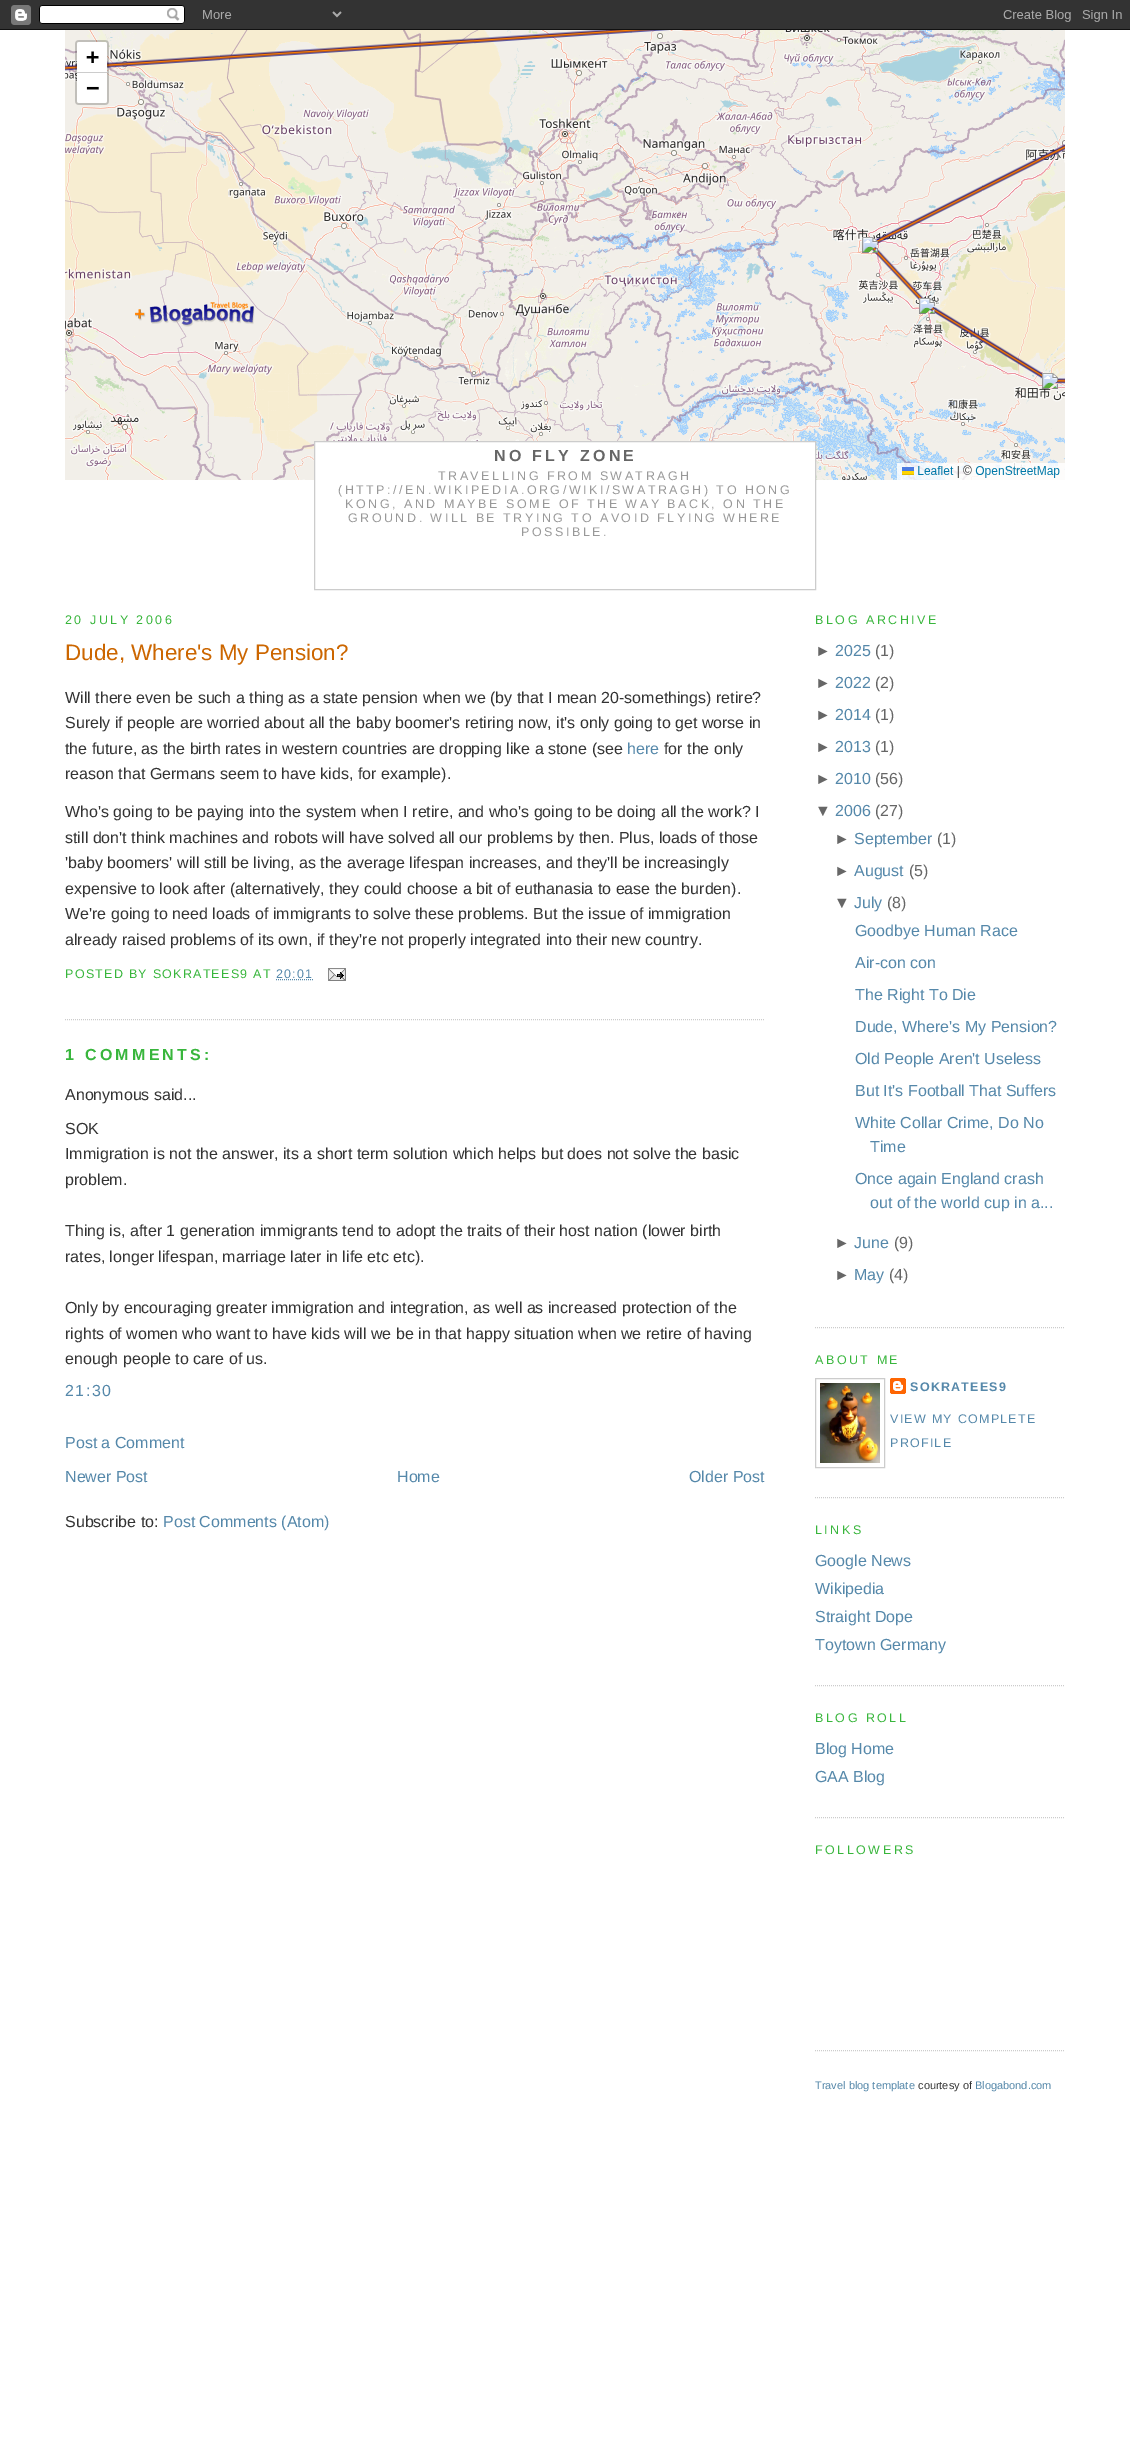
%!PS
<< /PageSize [1130 2448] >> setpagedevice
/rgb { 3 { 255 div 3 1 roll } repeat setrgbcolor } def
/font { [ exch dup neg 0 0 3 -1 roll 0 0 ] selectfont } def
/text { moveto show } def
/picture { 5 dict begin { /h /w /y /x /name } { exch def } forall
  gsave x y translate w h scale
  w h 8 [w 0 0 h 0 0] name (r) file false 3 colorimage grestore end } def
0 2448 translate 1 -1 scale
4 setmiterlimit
255 255 255 rgb
0 0 1130 2448 rectfill
(img_01.rgb) 0 0 1130 30 picture
(img_02.rgb) 65 30 1000 450 picture
315 442 500 38 rectfill
204 204 204 rgb
314.5 441.5 501 148 rectstroke
[1 1] 0 setdash
65 1019.5 moveto 700 0 rlineto stroke
85 136 170 rgb
276 979.5 moveto 37.5 0 rlineto stroke
(img_03.rgb) 328 968 18 13 picture
204 204 204 rgb
815 1327.5 moveto 250 0 rlineto stroke
815 1497.5 moveto 250 0 rlineto stroke
[] 0 setdash
815.5 1378.5 69 89 rectstroke
(img_04.rgb) 820 1383 60 80 picture
(img_05.rgb) 890 1378 16 16 picture
[1 1] 0 setdash
815 1685.5 moveto 250 0 rlineto stroke
815 1817.5 moveto 250 0 rlineto stroke
815 2050.5 moveto 250 0 rlineto stroke
/LiberationSans-Bold 16 font
102 102 102 rgb
494 461 moveto 3.25 0 (NO FLY ZONE) ashow
/LiberationSans-Regular 12.5 font
153 153 153 rgb
438 480 moveto 2.5 0 (TRAVELLING FROM SWATRAGH) ashow
338 494 moveto 2.5 0 (\(HTTP://EN.WIKIPEDIA.ORG/WIKI/SWATRAGH\) TO HONG) ashow
345 508 moveto 2.5 0 (KONG, AND MAYBE SOME OF THE WAY BACK, ON THE) ashow
348 522 moveto 2.5 0 (GROUND. WILL BE TRYING TO AVOID FLYING WHERE) ashow
521 536 moveto 2.5 0 (POSSIBLE.) ashow
56 182 60 rgb
65 624 moveto 2.5 0 (20 JULY 2006) ashow
/LiberationSans-Regular 22.4 font
204 102 0 rgb
(Dude, Where's My Pension?) 65 660 text
/LiberationSans-Regular 16 font
51 51 51 rgb
(Will there even be such a thing as a state pension when we \(by that I mean 20-somethings\) retire?) 65 703 text
(Surely if people are worried about all the baby boomer's retiring now, it's only going to get worse in) 65 728 text
(the future, as the birth rates in western countries are dropping like a stone \(see) 65 754 text
85 136 170 rgb
(here) 627 754 text
51 51 51 rgb
(for the only) 664 754 text
(reason that Germans seem to have kids, for example\).) 65 779 text
(Who's going to be paying into the system when I retire, and who's going to be doing all the work? I) 65 817 text
(still don't think machines and robots will have solved all our problems by then. Plus, loads of those) 65 843 text
('baby boomers' will still be living, as the average lifespan increases, and they'll be increasingly) 65 868 text
(expensive to look after \(alternatively, they could choose a bit of euthanasia to ease the burden\).) 65 894 text
(We're going to need loads of immigrants to solve these problems. But the issue of immigration) 65 919 text
(already raised problems of its own, if they're not properly integrated into their new country.) 65 945 text
/LiberationSans-Regular 12.5 font
56 182 60 rgb
65 978 moveto 1.25 0 (POSTED BY SOKRATEES9 AT) ashow
85 136 170 rgb
276 978 moveto 1.25 0 (20:01) ashow
/LiberationSans-Bold 16 font
56 182 60 rgb
65 1060 moveto 3.25 0 (1 COMMENTS:) ashow
/LiberationSans-Regular 16 font
51 51 51 rgb
(Anonymous said...) 65 1100 text
(SOK) 65 1134 text
(Immigration is not the answer, its a short term solution which helps but does not solve the basic) 65 1159 text
(problem.) 65 1185 text
(Thing is, after 1 generation immigrants tend to adopt the traits of their host nation \(lower birth) 65 1236 text
(rates, longer lifespan, marriage later in life etc etc\).) 65 1262 text
(Only by encouraging greater immigration and integration, as well as increased protection of the) 65 1313 text
(rights of women who want to have kids will we be in that happy situation when we retire of having) 65 1339 text
(enough people to care of us.) 65 1364 text
85 136 170 rgb
65 1396 moveto 1.5 0 (21:30) ashow
(Post a Comment) 65 1448 text
(Newer Post) 65 1482 text
(Home) 397 1482 text
(Older Post) 689 1482 text
51 51 51 rgb
(Subscribe to:) 65 1527 text
85 136 170 rgb
(Post Comments \(Atom\)) 163 1527 text
/LiberationSans-Regular 12.5 font
56 182 60 rgb
815 624 moveto 2.5 0 (BLOG ARCHIVE) ashow
/LiberationSans-Regular 16 font
102 102 102 rgb
(►) 815 656 text
85 136 170 rgb
(2025) 835 656 text
102 102 102 rgb
(\(1\)) 875 656 text
(►) 815 688 text
85 136 170 rgb
(2022) 835 688 text
102 102 102 rgb
(\(2\)) 875 688 text
(►) 815 720 text
85 136 170 rgb
(2014) 835 720 text
102 102 102 rgb
(\(1\)) 875 720 text
(►) 815 752 text
85 136 170 rgb
(2013) 835 752 text
102 102 102 rgb
(\(1\)) 875 752 text
(►) 815 784 text
85 136 170 rgb
(2010) 835 784 text
102 102 102 rgb
(\(56\)) 875 784 text
(▼) 815 816 text
85 136 170 rgb
(2006) 835 816 text
102 102 102 rgb
(\(27\)) 875 816 text
(►) 834 844 text
85 136 170 rgb
(September) 854 844 text
102 102 102 rgb
(\(1\)) 937 844 text
(►) 834 876 text
85 136 170 rgb
(August) 854 876 text
102 102 102 rgb
(\(5\)) 909 876 text
(▼) 834 908 text
85 136 170 rgb
(July) 854 908 text
102 102 102 rgb
(\(8\)) 887 908 text
85 136 170 rgb
(Goodbye Human Race) 855 936 text
(Air-con con) 855 968 text
(The Right To Die) 855 1000 text
(Dude, Where's My Pension?) 855 1032 text
(Old People Aren't Useless) 855 1064 text
(But It's Football That Suffers) 855 1096 text
(White Collar Crime, Do No) 855 1128 text
(Time) 870 1152 text
(Once again England crash) 855 1184 text
(out of the world cup in a...) 870 1208 text
102 102 102 rgb
(►) 834 1248 text
85 136 170 rgb
(June) 854 1248 text
102 102 102 rgb
(\(9\)) 894 1248 text
(►) 834 1280 text
85 136 170 rgb
(May) 854 1280 text
102 102 102 rgb
(\(4\)) 889 1280 text
/LiberationSans-Regular 12.5 font
56 182 60 rgb
815 1364 moveto 2.5 0 (ABOUT ME) ashow
/LiberationSans-Bold 12.5 font
85 136 170 rgb
910 1391 moveto 1.25 0 (SOKRATEES9) ashow
/LiberationSans-Regular 12.5 font
890 1423 moveto 1.25 0 (VIEW MY COMPLETE) ashow
890 1447 moveto 1.25 0 (PROFILE) ashow
56 182 60 rgb
815 1534 moveto 2.5 0 (LINKS) ashow
/LiberationSans-Regular 16 font
85 136 170 rgb
(Google News) 815 1566 text
(Wikipedia) 815 1594 text
(Straight Dope) 815 1622 text
(Toytown Germany) 815 1650 text
/LiberationSans-Regular 12.5 font
56 182 60 rgb
815 1722 moveto 2.5 0 (BLOG ROLL) ashow
/LiberationSans-Regular 16 font
85 136 170 rgb
(Blog Home) 815 1754 text
(GAA Blog) 815 1782 text
/LiberationSans-Regular 12.5 font
56 182 60 rgb
815 1854 moveto 2.5 0 (FOLLOWERS) ashow
/LiberationSans-Regular 11 font
85 136 170 rgb
(Travel blog template) 815 2089 text
51 51 51 rgb
(courtesy of) 918 2089 text
85 136 170 rgb
(Blogabond.com) 975 2089 text
showpage
